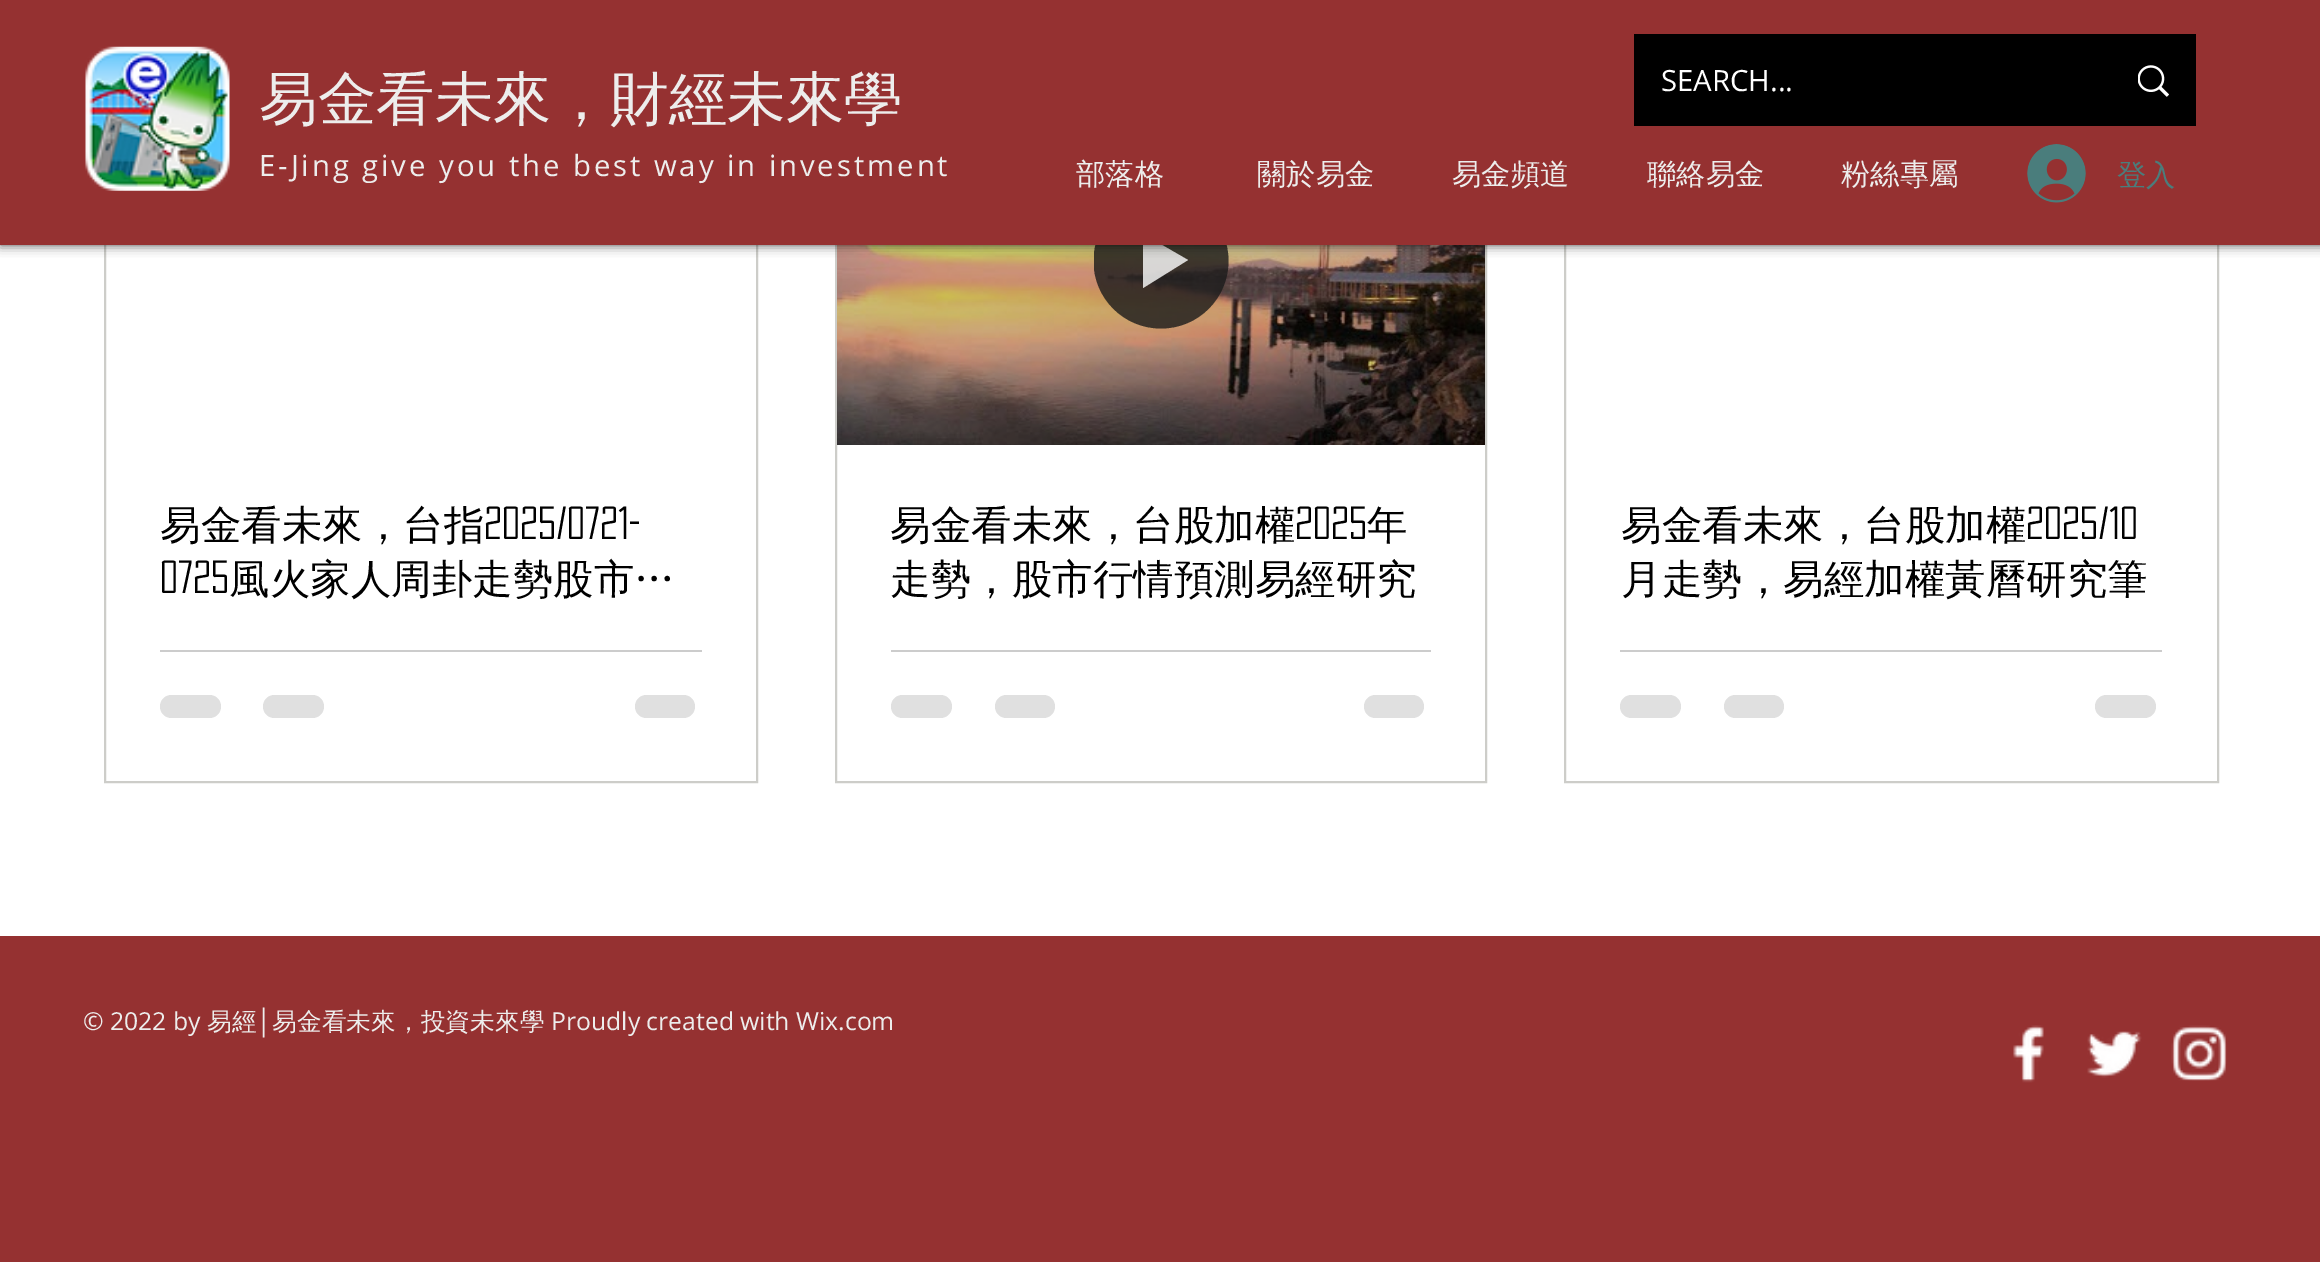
%!PS
<< /PageSize [2320 1262] /PageUsesTransparency true >> setpagedevice
/rgb { 3 { 255 div 3 1 roll } repeat setrgbcolor } def
/font { [ exch dup neg 0 0 3 -1 roll 0 0 ] selectfont } def
/text { moveto show } def
/alpha { dup .setfillconstantalpha .setstrokeconstantalpha } def
/circle { newpath 0 360 arc closepath } def
/roundrect { 5 dict begin { /r /h /w /y /x } { exch def } forall
  x r add y moveto x w add y 2 copy h add r arct x w add y h add x 1 index r arct
  x y h add x y r arct x y 2 copy exch w add exch r arct closepath end } def
/shadow { 12 dict begin { /a /b /q /h /w /y /x } { exch def } forall gsave /was 0 def
  9 -2 -9 { dup b mul 4 div /e exch def 1 sub .425 mul 2.718 exch exp 1 add a .99 .min exch div /now exch def
    1 1 now sub 1 was sub div sub alpha /was now def
    w h .min e 2 mul add 0 gt { x e sub y e sub w e 2 mul add h e 2 mul add
      q e add b .6 mul add w h .min 2 div e add .min 0 .max roundrect fill } if } for grestore end } def
/picture { 5 dict begin { /h /w /y /x /name } { exch def } forall
  gsave x y translate w h scale
  w h 8 [w 0 0 h 0 0] name (r) file false 3 colorimage grestore end } def
0 .pushpdf14devicefilter
0 1262 translate 1 -1 scale
4 setmiterlimit
255 255 255 rgb
0 0 2320 1262 rectfill
205 205 201 rgb
2 setlinewidth
105 78 652 704 rectstroke
836 78 650 704 rectstroke
(img_04.rgb) 837 245 648 200 picture
gsave
1094 194 135 135 rectclip
0.8 alpha
26 26 26 rgb
1161 261 67.5 circle fill
grestore
0.8 alpha
255 255 255 rgb
1143 234 moveto 0 54 rlineto 45 -28 rlineto closepath fill
1 alpha
205 205 201 rgb
1565 78 653 704 rectstroke
0 0 0 rgb
0 0 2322 245 0 5.5 0.7 shadow
149 49 49 rgb
0 0 2320 245 rectfill
(img_01.rgb) 85 46 145 145 picture
0 0 0 rgb
1634 34 562 92 rectfill
(img_02.rgb) 2138 65 31 32 picture
(img_03.rgb) 2027 144 59 59 picture
204 204 204 rgb
160 650 542 2 rectfill
224 224 224 rgb
160 695 61 23 11.5 roundrect fill
263 695 61 23 11.5 roundrect fill
635 695 60 23 11.5 roundrect fill
204 204 204 rgb
891 650 540 2 rectfill
224 224 224 rgb
891 695 61 23 11.5 roundrect fill
995 695 60 23 11.5 roundrect fill
1364 695 60 23 11.5 roundrect fill
204 204 204 rgb
1620 650 542 2 rectfill
224 224 224 rgb
1620 695 61 23 11.5 roundrect fill
1724 695 60 23 11.5 roundrect fill
2095 695 61 23 11.5 roundrect fill
149 49 49 rgb
0 936 2320 326 rectfill
(img_05.rgb) 2013 1025 31 58 picture
(img_06.rgb) 2087 1031 55 47 picture
(img_07.rgb) 2171 1025 56 56 picture
/WenQuanYiZenHei-Medium 58.5 font
237 237 236 rgb
(易金看未來，財經未來學) 259 119 text
/OpenSans-Regular 29.25 font
259 176 moveto 2.95 0 (E-Jing give you the best way in investment) ashow
255 255 255 rgb
(SEARCH...) 1661 91 text
/WenQuanYiZenHei-Medium 29.25 font
237 237 236 rgb
(部落格) 1076 184 text
(關於易金) 1257 184 text
(易金頻道) 1452 184 text
(聯絡易金) 1647 184 text
(粉絲專屬) 1841 184 text
74 125 124 rgb
(登入) 2117 185 text
/WenQuanYiZenHei-Medium 40.5 font
0 0 0 rgb
(易金看未來，台指) 160 539 text
/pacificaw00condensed-Regular 40.5 font
(2025/0721-) 484 539 text
(0725) 160 593 text
/WenQuanYiZenHei-Medium 40.5 font
(風火家人周卦走勢股市…) 229 593 text
(易金看未來，台股加權) 890 539 text
/pacificaw00condensed-Regular 40.5 font
(2025) 1295 539 text
/WenQuanYiZenHei-Medium 40.5 font
(年) 1367 539 text
(走勢，股市行情預測易經研究) 890 593 text
(易金看未來，台股加權) 1621 539 text
/pacificaw00condensed-Regular 40.5 font
(2025/10) 2026 539 text
/WenQuanYiZenHei-Medium 40.5 font
(月走勢，易經加權黃曆研究筆) 1621 593 text
/OpenSans-Regular 24.75 font
237 237 236 rgb
(© 2022 by) 83 1030 text
/WenQuanYiZenHei-Medium 24.75 font
(易經) 207 1030 text
/LiberationSans-Regular 24.75 font
(│) 257 1030 text
/WenQuanYiZenHei-Medium 24.75 font
(易金看未來，投資未來學) 272 1030 text
/OpenSans-Regular 24.75 font
(Proudly created with Wix.com) 551 1030 text
.poppdf14devicefilter showpage
